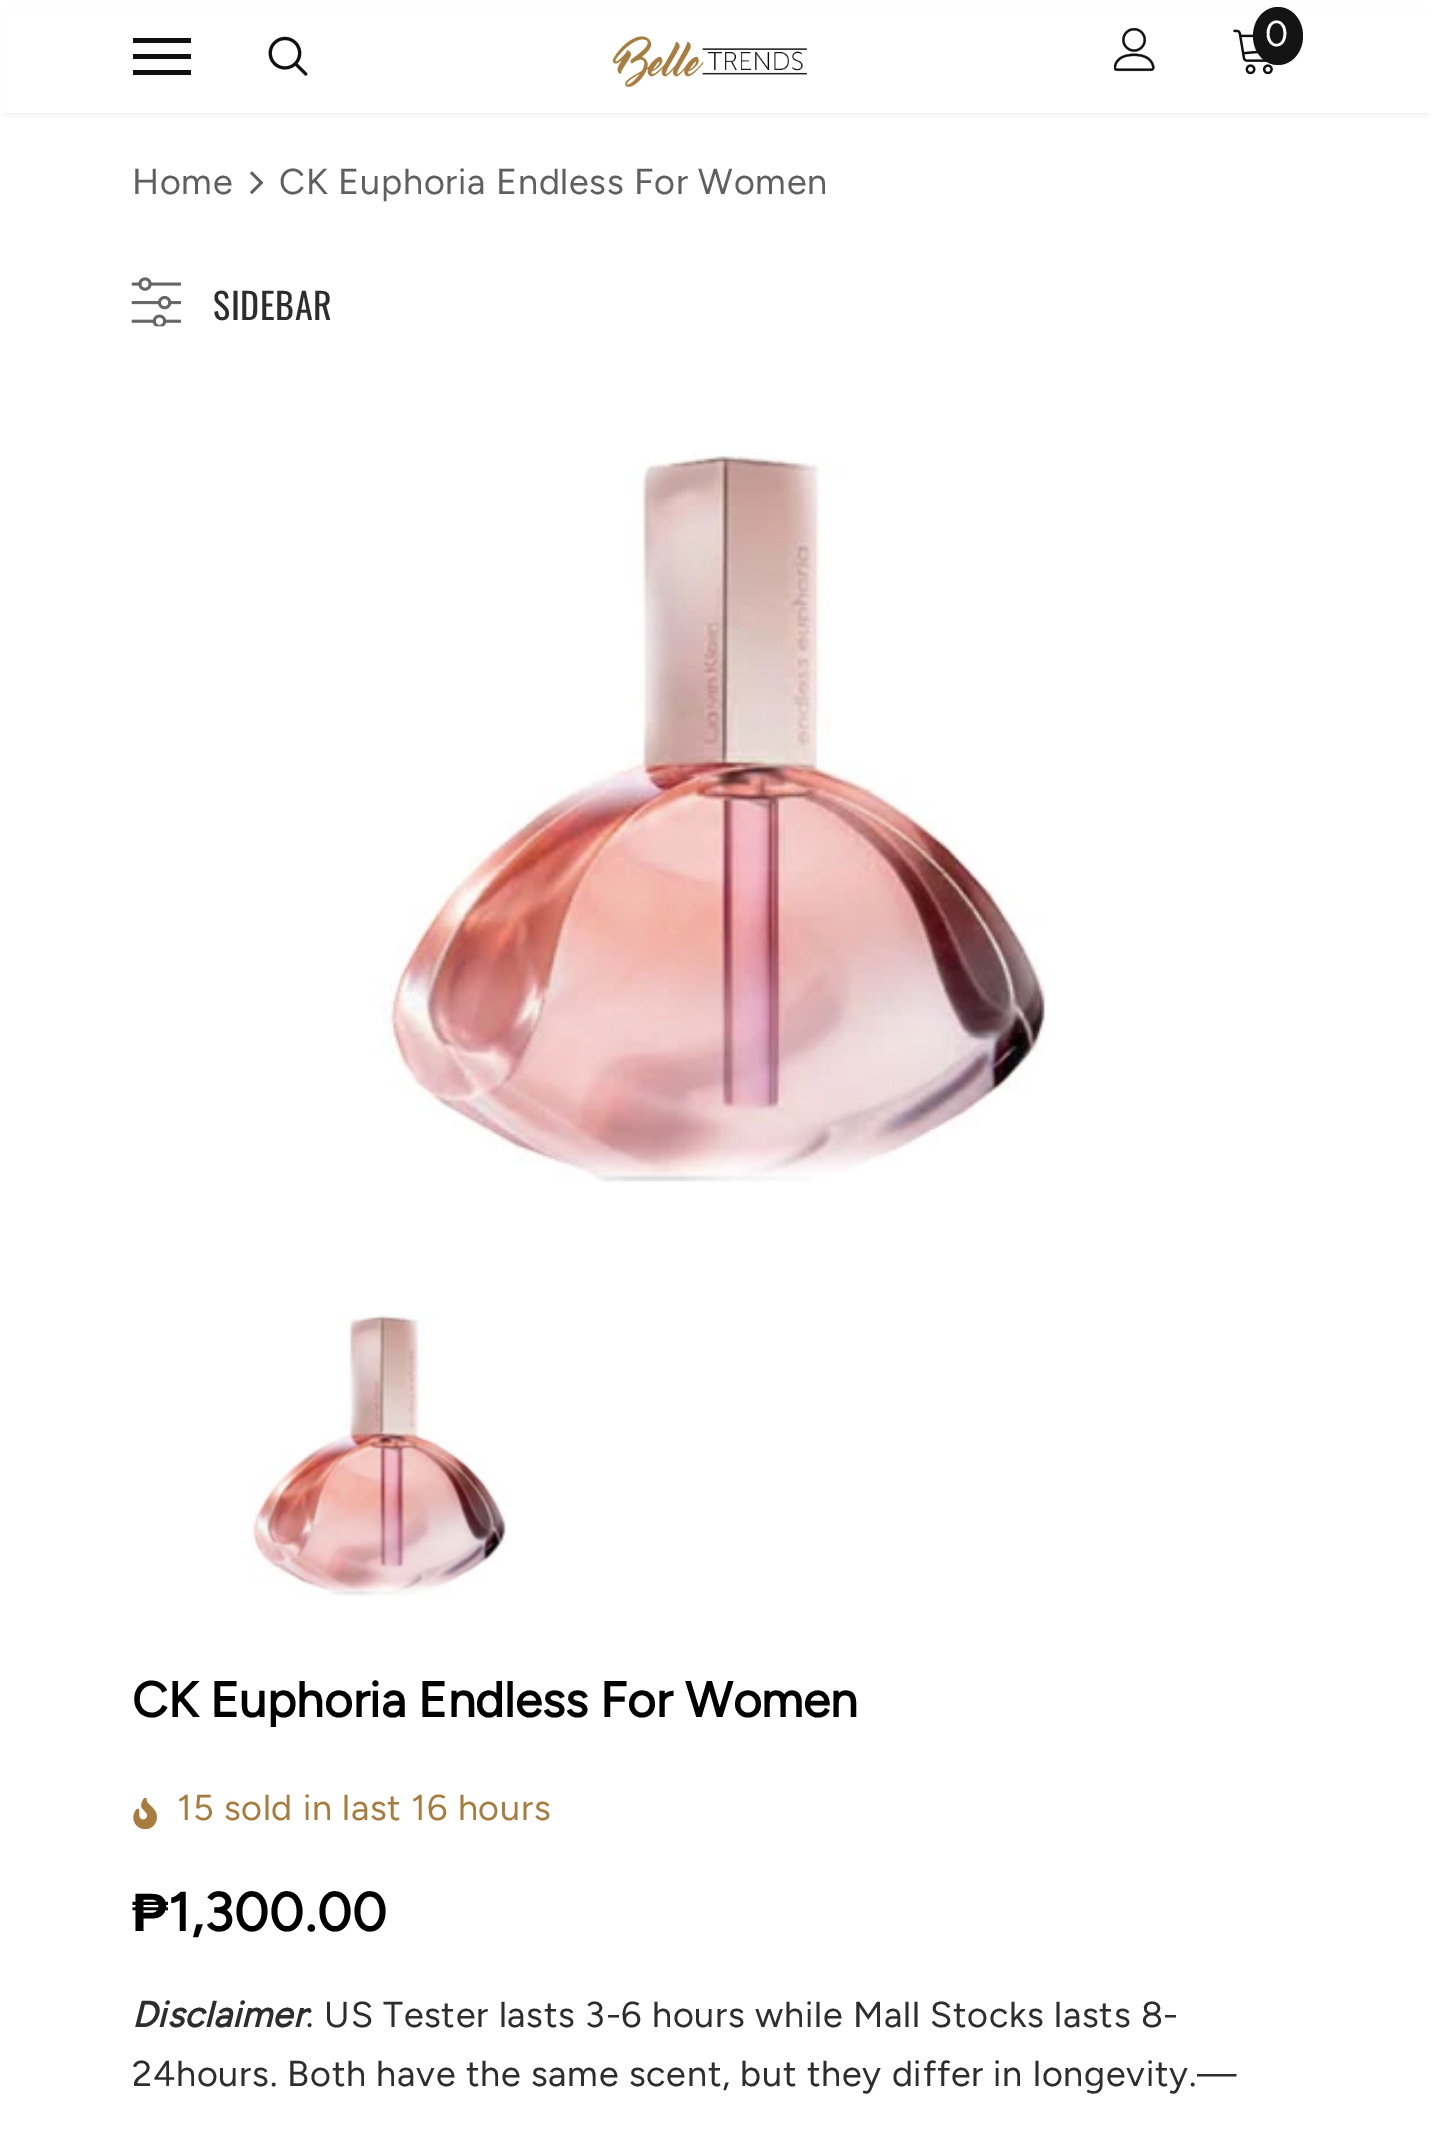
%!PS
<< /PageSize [1432 2132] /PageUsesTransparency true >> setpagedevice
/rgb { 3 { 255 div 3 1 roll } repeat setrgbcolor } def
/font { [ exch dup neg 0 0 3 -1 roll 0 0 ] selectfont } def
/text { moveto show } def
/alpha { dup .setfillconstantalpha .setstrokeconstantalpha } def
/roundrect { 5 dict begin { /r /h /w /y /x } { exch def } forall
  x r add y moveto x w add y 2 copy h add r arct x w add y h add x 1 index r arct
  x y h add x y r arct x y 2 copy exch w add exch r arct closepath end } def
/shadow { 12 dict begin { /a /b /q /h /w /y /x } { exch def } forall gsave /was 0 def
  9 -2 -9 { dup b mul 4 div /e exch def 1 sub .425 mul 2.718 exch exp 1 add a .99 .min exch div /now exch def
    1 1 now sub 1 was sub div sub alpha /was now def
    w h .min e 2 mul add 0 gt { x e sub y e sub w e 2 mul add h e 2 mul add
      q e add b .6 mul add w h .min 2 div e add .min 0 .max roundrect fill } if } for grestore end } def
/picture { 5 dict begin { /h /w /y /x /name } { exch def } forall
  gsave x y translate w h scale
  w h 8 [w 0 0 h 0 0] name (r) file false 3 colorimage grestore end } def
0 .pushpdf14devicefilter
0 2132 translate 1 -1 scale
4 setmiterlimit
255 255 255 rgb
0 0 1432 2132 rectfill
0 0 0 rgb
7 14 1420 99 0 3.5 0.12 shadow
255 255 255 rgb
2 9 1430 104 rectfill
15 15 15 rgb
133 54 58 5 rectfill
133 38 58 5 rectfill
133 70 58 5 rectfill
(img_01.rgb) 268 36 40 40 picture
(img_02.rgb) 612 36 195 51 picture
(img_03.rgb) 1114 27 41 45 picture
(img_04.rgb) 1233 29 40 45 picture
20 20 20 rgb
1278 7 moveto 14 0 25 13 25 29 rcurveto 0 16 -11 29 -25 29 rcurveto -14 0 -25 -13 -25 -29 rcurveto 0 -16 11 -29 25 -29 rcurveto closepath fill
(img_05.rgb) 250 171 14 23 picture
(img_06.rgb) 131 277 51 50 picture
(img_07.rgb) 381 452 665 730 picture
(img_08.rgb) 250 1314 258 282 picture
(img_09.rgb) 133 1798 24 31 picture
/Figtree-Regular 36 font
255 255 255 rgb
1265 46 moveto 0.72 0 (0) ashow
95 95 95 rgb
132 194 moveto 0.72 0 (Home) ashow
279 194 moveto 0.72 0 (CK Euphoria Endless For Women) ashow
/Oswald-Regular 36 font
45 45 45 rgb
213 320 moveto 0.72 0 (SIDEBAR) ashow
/Figtree-Bold 49.5 font
0 0 0 rgb
(CK Euphoria Endless For Women) 132 1717 text
/Figtree-Regular 36 font
166 125 63 rgb
177 1820 moveto 0.72 0 (15 sold in last 16 hours) ashow
/LiberationSans-Bold 54 font
0 0 0 rgb
132 1931 moveto 0.72 0 (₱) ashow
/Figtree-Bold 54 font
168 1931 moveto 0.72 0 (1,300.00) ashow
/Figtree-BoldItalic 36 font
45 45 45 rgb
132 2027 moveto 0.72 0 (Disclaimer) ashow
/Figtree-Regular 36 font
305 2027 moveto 0.72 0 (: US Tester lasts 3-6 hours while Mall Stocks lasts 8-) ashow
132 2086 moveto 0.72 0 (24hours. Both have the same scent, but they differ in longevity.—) ashow
.poppdf14devicefilter showpage
